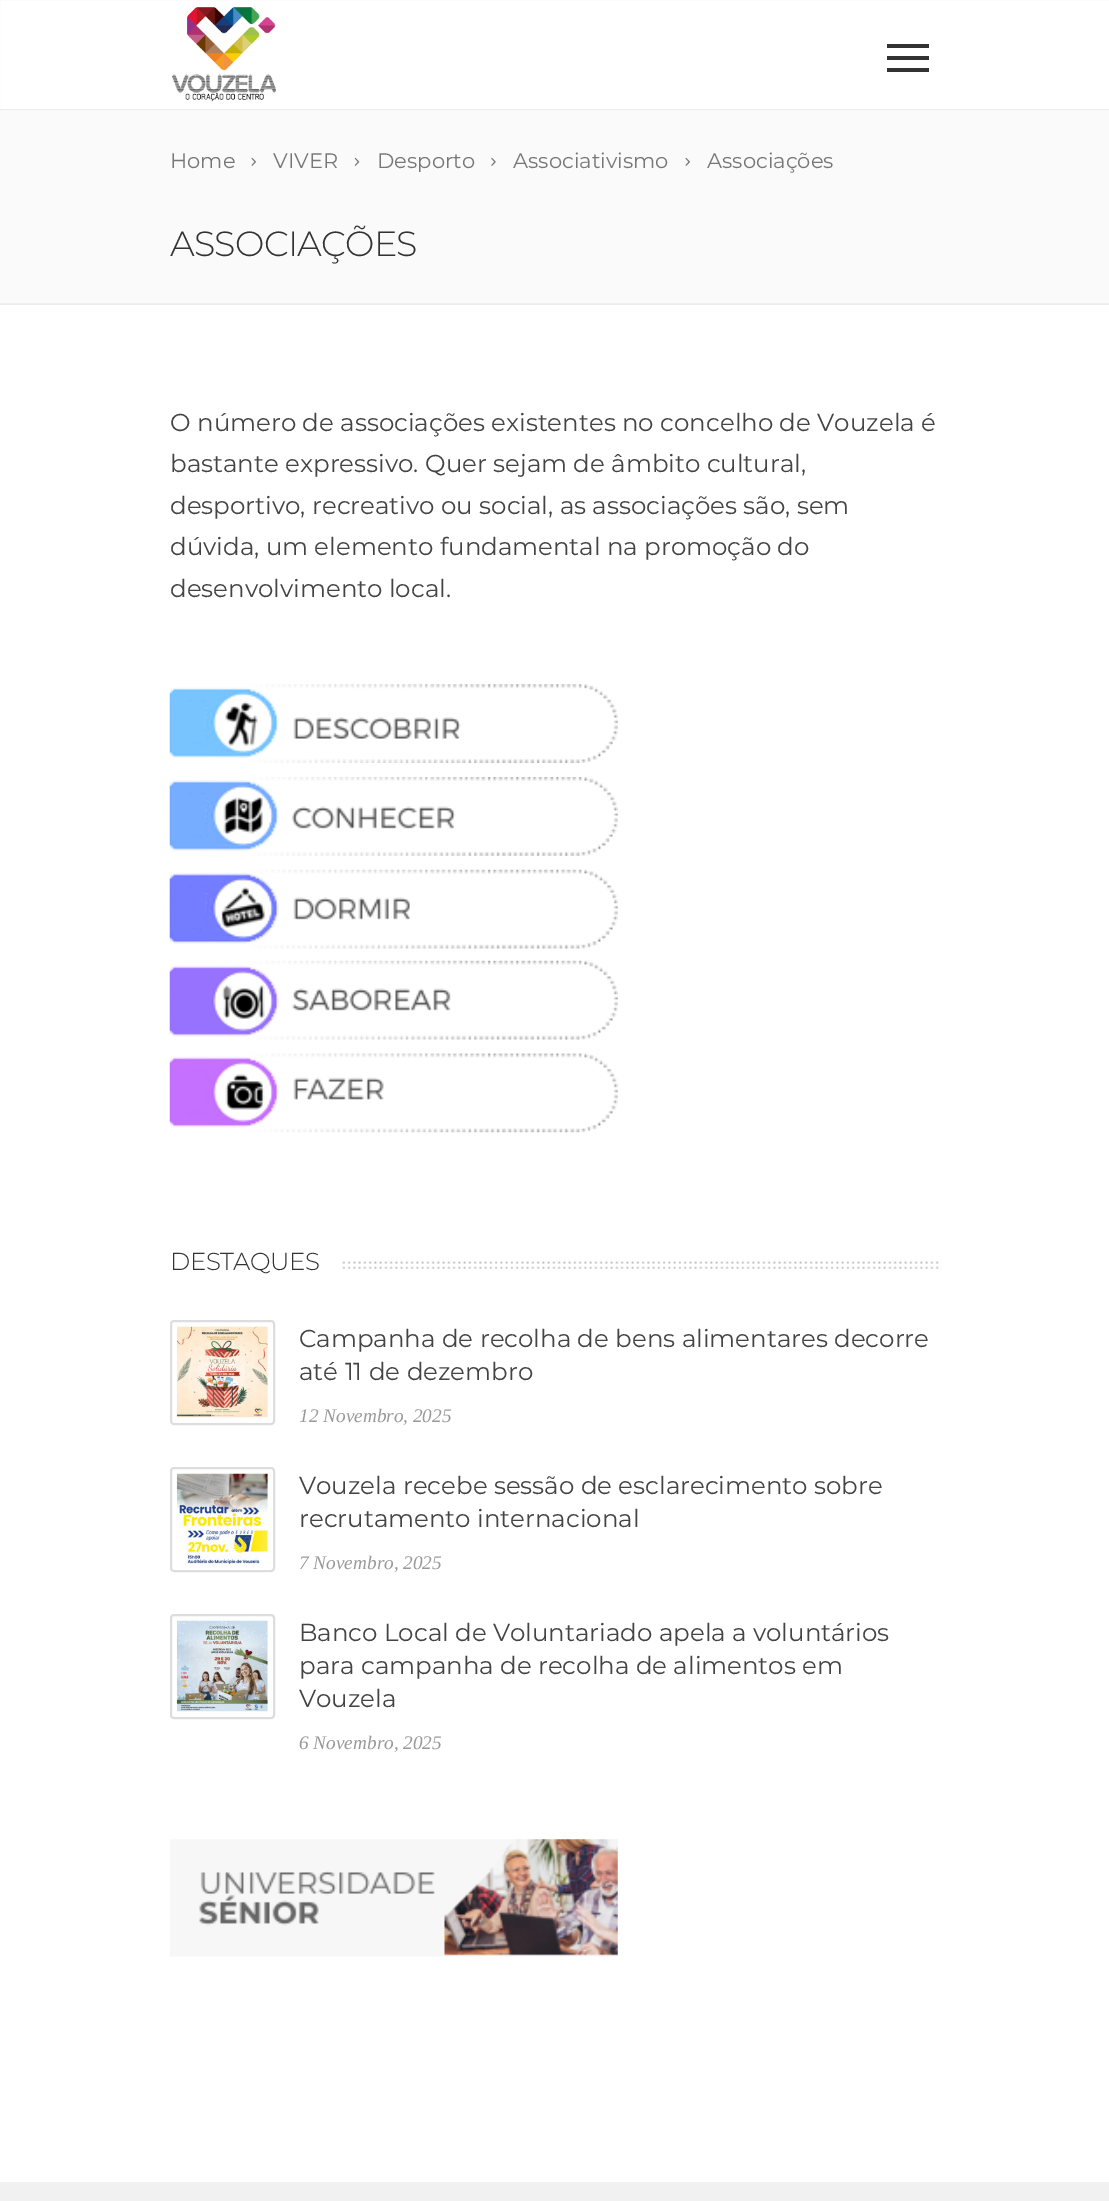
%!PS
<< /PageSize [1109 2201] /PageUsesTransparency true >> setpagedevice
/rgb { 3 { 255 div 3 1 roll } repeat setrgbcolor } def
/font { [ exch dup neg 0 0 3 -1 roll 0 0 ] selectfont } def
/text { moveto show } def
/alpha { dup .setfillconstantalpha .setstrokeconstantalpha } def
/roundrect { 5 dict begin { /r /h /w /y /x } { exch def } forall
  x r add y moveto x w add y 2 copy h add r arct x w add y h add x 1 index r arct
  x y h add x y r arct x y 2 copy exch w add exch r arct closepath end } def
/picture { 5 dict begin { /h /w /y /x /name } { exch def } forall
  gsave x y translate w h scale
  w h 8 [w 0 0 h 0 0] name (r) file false 3 colorimage grestore end } def
0 .pushpdf14devicefilter
0 2201 translate 1 -1 scale
4 setmiterlimit
255 255 255 rgb
0 0 1109 2201 rectfill
250 250 250 rgb
0 109 1109 194 rectfill
0.05 alpha
0 0 0 rgb
2 setlinewidth
-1 -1 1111 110 rectstroke
1 alpha
255 255 255 rgb
0 108 1109 1 rectfill
(img_01.rgb) 172 7 104 95 picture
51 51 51 rgb
887 44 42 4 rectfill
887 56 42 4 rectfill
887 68 42 4 rectfill
238 238 238 rgb
0 303 1109 2 rectfill
(img_02.rgb) 251 157 5 9 picture
(img_03.rgb) 354 157 6 9 picture
(img_04.rgb) 491 157 5 9 picture
(img_02.rgb) 685 157 5 9 picture
(img_05.rgb) 169 684 449 79 picture
(img_06.rgb) 169 777 449 79 picture
(img_07.rgb) 169 869 449 80 picture
(img_08.rgb) 169 960 449 80 picture
(img_09.rgb) 169 1053 449 80 picture
(img_10.rgb) 169 1261 770 8 picture
255 255 255 rgb
170 1261 170 8 rectfill
221 221 221 rgb
171 1321 103 103 3 roundrect stroke
(img_11.rgb) 176 1326 92 92 picture
171 1468 103 103 3 roundrect stroke
(img_12.rgb) 176 1473 92 92 picture
171 1615 103 103 3 roundrect stroke
(img_13.rgb) 176 1620 92 92 picture
(img_14.rgb) 170 1839 448 118 picture
241 241 241 rgb
0 2182 1109 19 rectfill
/Montserrat-Regular 21 font
119 119 119 rgb
(Home) 170 168 text
(VIVER) 273 168 text
(Desporto) 377 168 text
(Associativismo) 513 168 text
(Associações) 707 168 text
/Montserrat-Light 35 font
51 51 51 rgb
170 256 moveto -0.75 0 (ASSOCIAÇÕES) ashow
/Montserrat-Regular 24.5 font
68 68 68 rgb
(O número de associações existentes no concelho de Vouzela é) 170 431 text
(bastante expressivo. Quer sejam de âmbito cultural,) 170 472 text
(desportivo, recreativo ou social, as associações são, sem) 170 514 text
(dúvida, um elemento fundamental na promoção do) 170 555 text
(desenvolvimento local.) 170 597 text
/Montserrat-Light 24.5 font
51 51 51 rgb
170 1270 moveto -0.5 0 (DESTAQUES) ashow
/Montserrat-Regular 24.5 font
68 68 68 rgb
(Campanha de recolha de bens alimentares decorre) 299 1347 text
(até 11 de dezembro) 299 1380 text
/LiberationSerif-Italic 19.25 font
153 153 153 rgb
(12 Novembro, 2025) 299 1422 text
/Montserrat-Regular 24.5 font
68 68 68 rgb
(Vouzela recebe sessão de esclarecimento sobre) 299 1494 text
(recrutamento internacional) 299 1527 text
/LiberationSerif-Italic 19.25 font
153 153 153 rgb
(7 Novembro, 2025) 299 1569 text
/Montserrat-Regular 24.5 font
68 68 68 rgb
(Banco Local de Voluntariado apela a voluntários) 299 1641 text
(para campanha de recolha de alimentos em) 299 1674 text
(Vouzela) 299 1707 text
/LiberationSerif-Italic 19.25 font
153 153 153 rgb
(6 Novembro, 2025) 299 1749 text
.poppdf14devicefilter showpage
